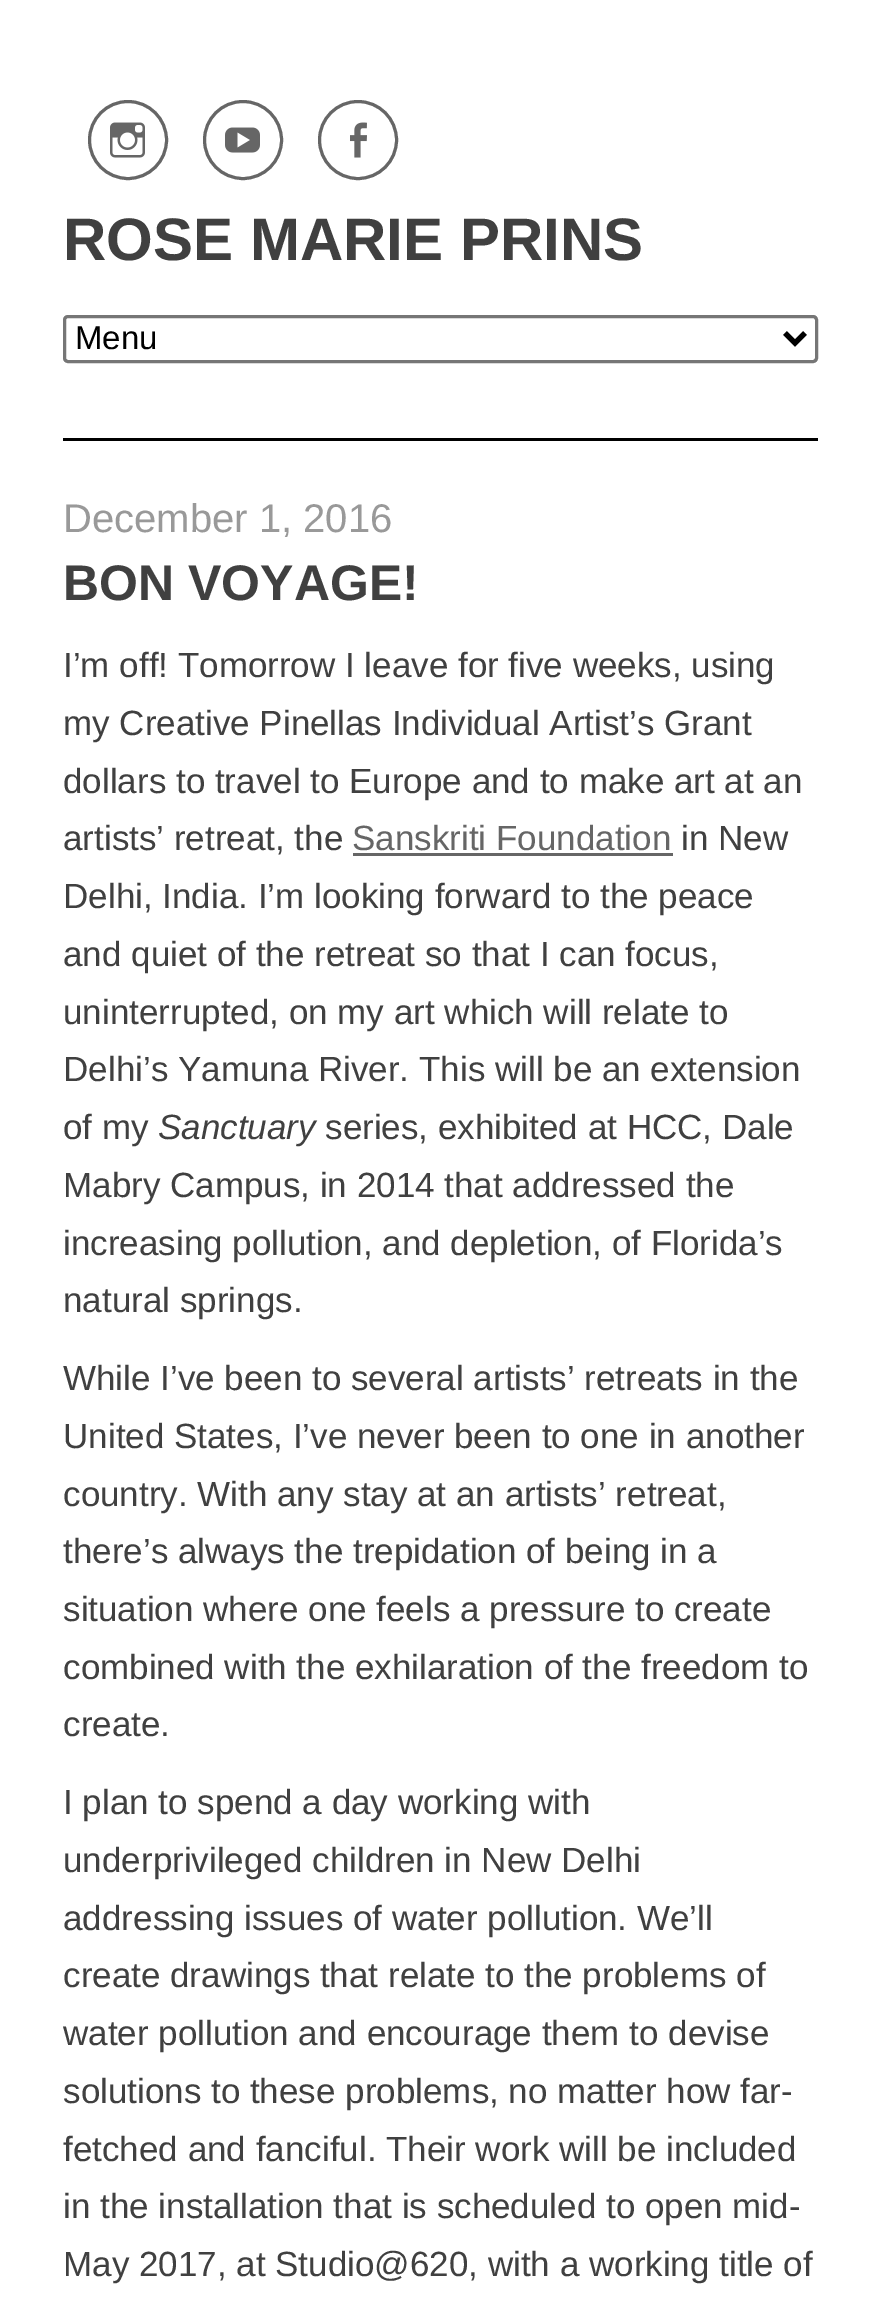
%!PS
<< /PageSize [880 2304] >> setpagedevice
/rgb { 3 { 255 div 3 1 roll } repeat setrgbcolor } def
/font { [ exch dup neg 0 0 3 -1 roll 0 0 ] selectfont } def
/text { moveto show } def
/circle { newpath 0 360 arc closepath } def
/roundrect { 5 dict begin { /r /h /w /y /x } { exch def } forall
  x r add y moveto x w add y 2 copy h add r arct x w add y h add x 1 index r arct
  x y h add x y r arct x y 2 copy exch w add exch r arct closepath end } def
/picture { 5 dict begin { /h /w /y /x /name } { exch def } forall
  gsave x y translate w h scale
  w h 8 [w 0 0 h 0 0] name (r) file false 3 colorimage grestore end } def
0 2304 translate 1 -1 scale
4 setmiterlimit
255 255 255 rgb
0 0 880 2304 rectfill
0 0 0 rgb
63 438 755 3 rectfill
102 102 102 rgb
3 setlinewidth
128 140 38.5 circle stroke
(img_01.rgb) 110 122 35 36 picture
243 140 38.5 circle stroke
(img_02.rgb) 225 127 35 26 picture
358 140 38.5 circle stroke
(img_03.rgb) 350 122 17 36 picture
118 118 118 rgb
64.5 316.5 752 45 3.5 roundrect stroke
0 0 0 rgb
5 setlinewidth
785 333 moveto 10 10 rlineto 10 -10 rlineto stroke
102 102 102 rgb
353 853 320 3 rectfill
/LiberationSans-Bold 60 font
64 64 64 rgb
(ROSE MARIE PRINS) 63 260 text
/LiberationSans-Regular 33 font
0 0 0 rgb
(Menu) 75 349 text
/LiberationSans-Regular 40 font
153 153 153 rgb
(December 1, 2016) 63 532 text
/LiberationSans-Bold 50 font
64 64 64 rgb
(BON VOYAGE!) 63 600 text
/LiberationSans-Regular 35 font
(I’m off! Tomorrow I leave for five weeks, using) 63 677 text
(my Creative Pinellas Individual Artist’s Grant) 63 735 text
(dollars to travel to Europe and to make art at an) 63 793 text
(artists’ retreat, the) 63 850 text
102 102 102 rgb
(Sanskriti Foundation) 352 850 text
64 64 64 rgb
(in New) 681 850 text
(Delhi, India. I’m looking forward to the peace) 63 908 text
(and quiet of the retreat so that I can focus,) 63 966 text
(uninterrupted, on my art which will relate to) 63 1024 text
(Delhi’s Yamuna River. This will be an extension) 63 1081 text
(of my) 63 1139 text
/LiberationSans-Italic 35 font
(Sanctuary) 158 1139 text
/LiberationSans-Regular 35 font
(series, exhibited at HCC, Dale) 325 1139 text
(Mabry Campus, in 2014 that addressed the) 63 1197 text
(increasing pollution, and depletion, of Florida’s) 63 1255 text
(natural springs.) 63 1312 text
(While I’ve been to several artists’ retreats in the) 63 1390 text
(United States, I’ve never been to one in another) 63 1448 text
(country. With any stay at an artists’ retreat,) 63 1506 text
(there’s always the trepidation of being in a) 63 1563 text
(situation where one feels a pressure to create) 63 1621 text
(combined with the exhilaration of the freedom to) 63 1679 text
(create.) 63 1736 text
(I plan to spend a day working with) 63 1814 text
(underprivileged children in New Delhi) 63 1872 text
(addressing issues of water pollution. We’ll) 63 1930 text
(create drawings that relate to the problems of) 63 1987 text
(water pollution and encourage them to devise) 63 2045 text
(solutions to these problems, no matter how far-) 63 2103 text
(fetched and fanciful. Their work will be included) 63 2161 text
(in the installation that is scheduled to open mid-) 63 2218 text
(May 2017, at Studio@620, with a working title of) 63 2276 text
showpage
